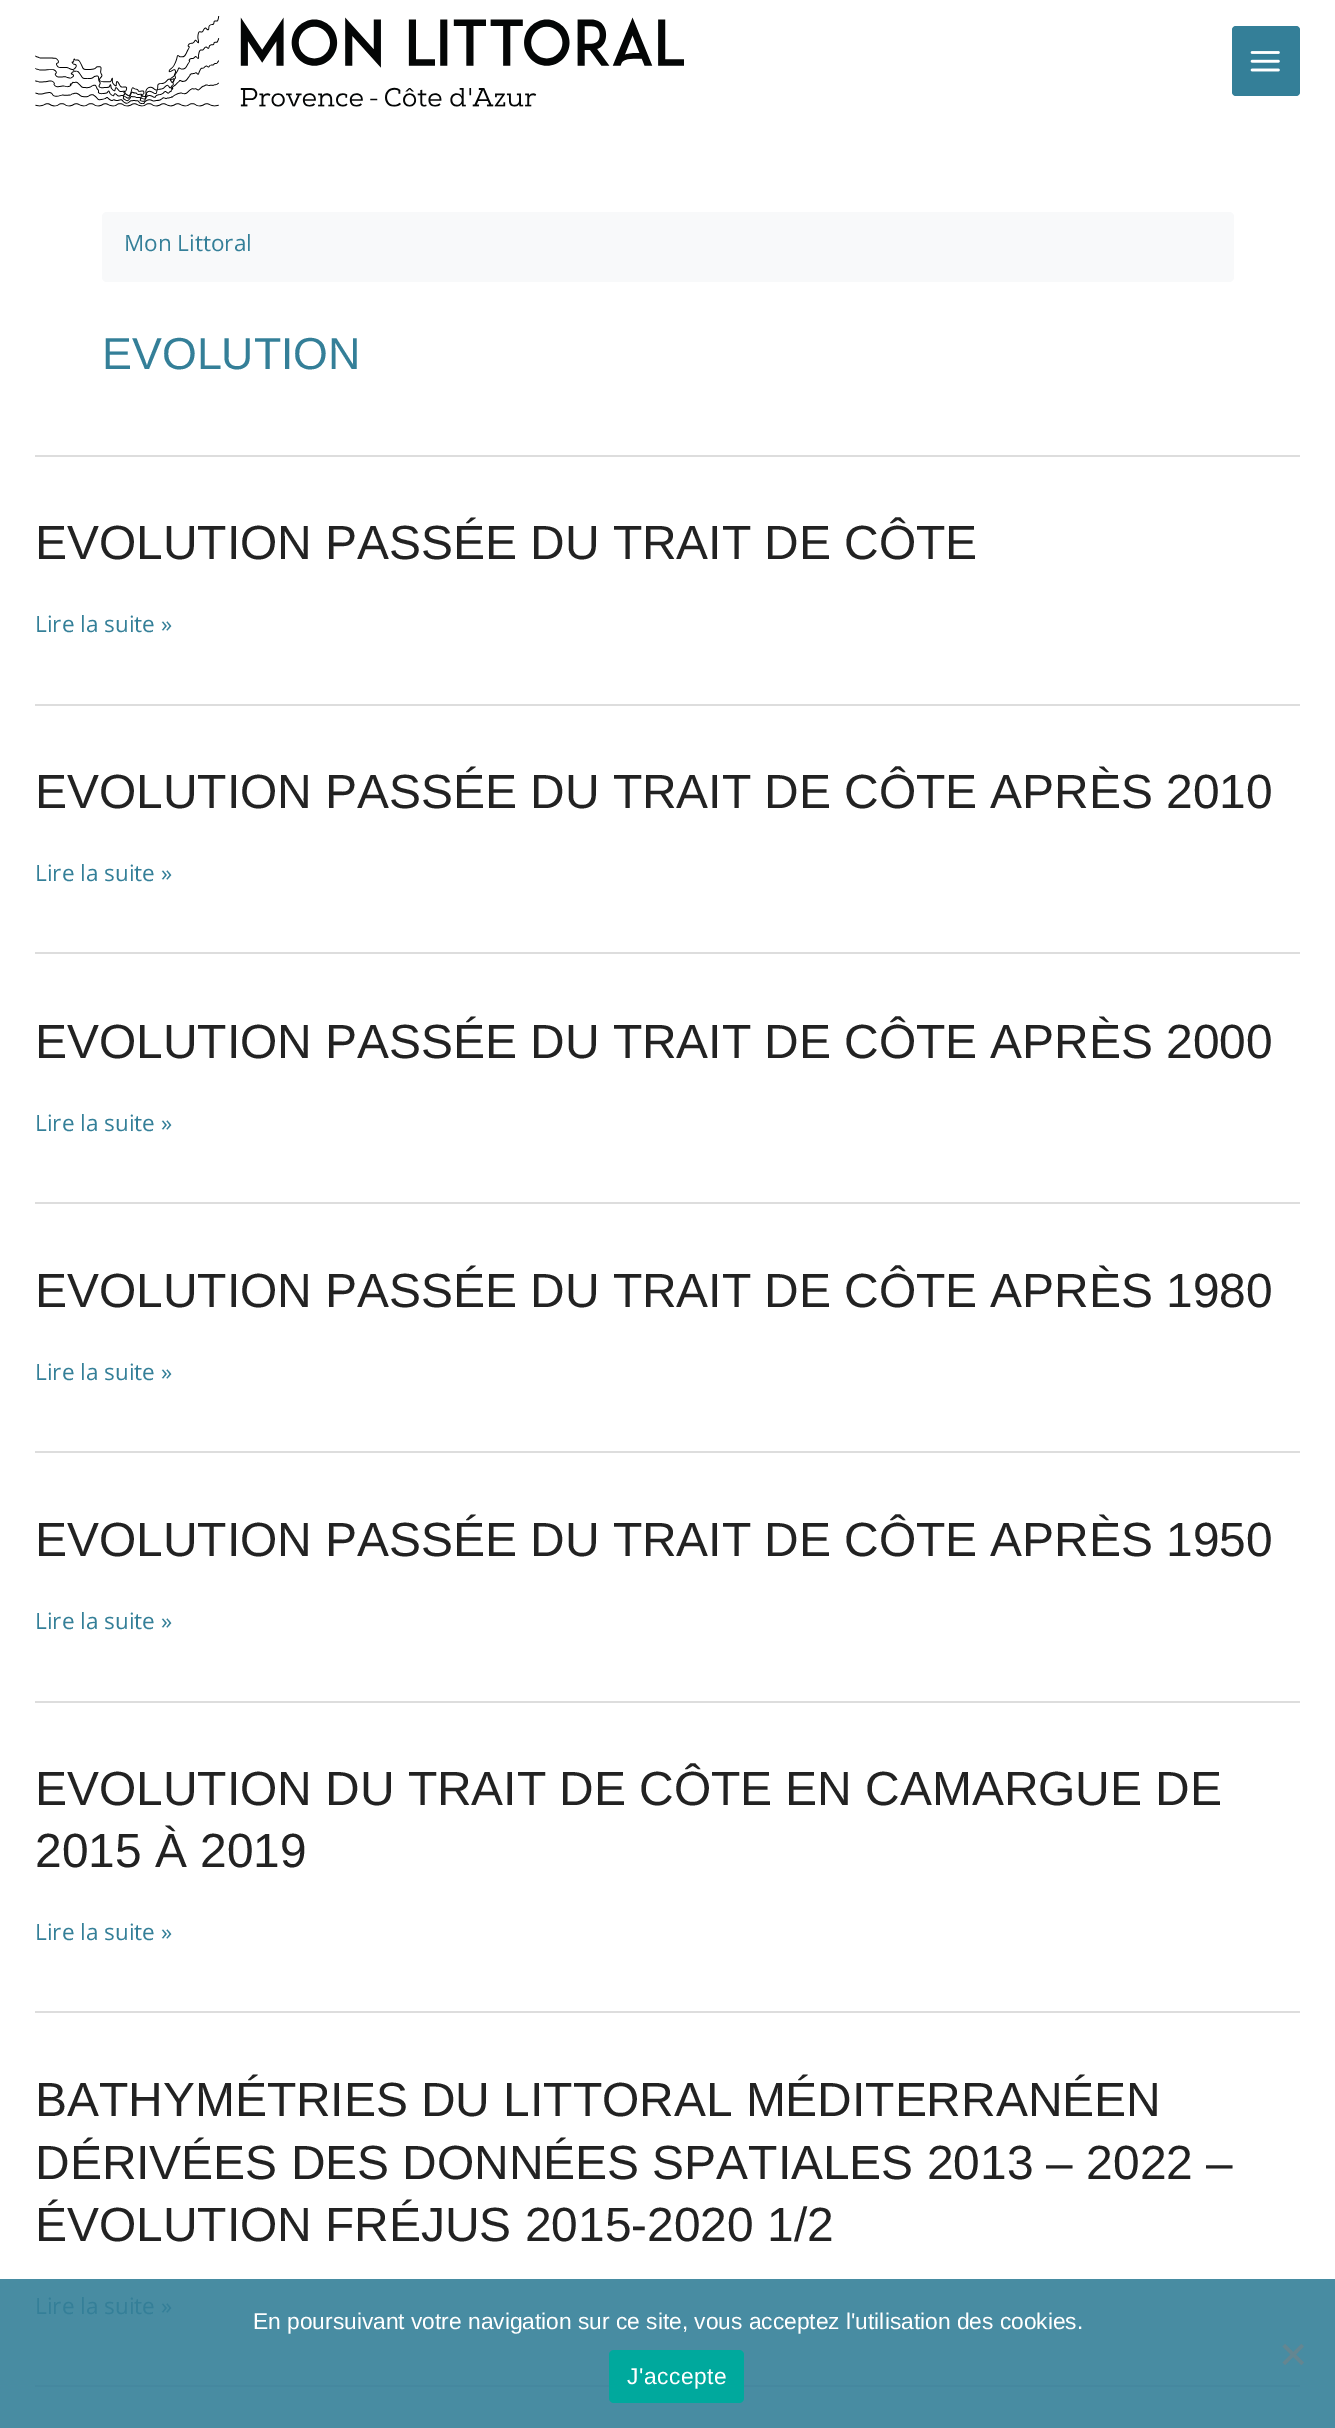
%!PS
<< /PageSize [1335 2428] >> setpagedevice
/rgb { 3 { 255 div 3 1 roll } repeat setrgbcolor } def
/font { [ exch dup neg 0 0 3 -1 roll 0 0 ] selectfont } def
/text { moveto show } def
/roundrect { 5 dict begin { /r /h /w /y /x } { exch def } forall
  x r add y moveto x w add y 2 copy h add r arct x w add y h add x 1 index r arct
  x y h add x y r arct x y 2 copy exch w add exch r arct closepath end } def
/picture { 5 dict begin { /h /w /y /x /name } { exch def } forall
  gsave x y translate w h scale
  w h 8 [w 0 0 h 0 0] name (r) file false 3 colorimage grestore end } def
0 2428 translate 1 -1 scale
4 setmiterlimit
255 255 255 rgb
0 0 1335 2428 rectfill
72 140 162 rgb
0 2279 1335 149 rectfill
(img_01.rgb) 35 16 649 91 picture
52 127 152 rgb
1232 26 68 70 4 roundrect fill
(img_02.rgb) 1250 51 30 21 picture
221 221 221 rgb
35 455 1265 2 rectfill
248 249 250 rgb
102 212 1132 70 5 roundrect fill
221 221 221 rgb
35 704 1265 2 rectfill
35 952 1265 2 rectfill
35 1202 1265 2 rectfill
35 1451 1265 2 rectfill
35 1701 1265 2 rectfill
35 2011 1265 2 rectfill
69 136 159 rgb
35 2385 1265 2 rectfill
100 134 145 rgb
1301.5 2344 moveto 2.5 2.5 rlineto -19 18.5 rlineto -2.5 -2.5 rlineto closepath fill
1282.5 2346.5 moveto 2.5 -2.5 rlineto 19 18.5 rlineto -2.5 2.5 rlineto closepath fill
0 169 157 rgb
609 2350 135 53 5 roundrect fill
/OpenSans-Regular 22.5 font
52 127 152 rgb
(Mon Littoral) 124 251 text
/LiberationSans-Regular 44.75 font
(EVOLUTION) 102 369 text
/LiberationSans-Regular 47.9 font
34 34 34 rgb
(EVOLUTION PASSÉE DU TRAIT DE CÔTE) 35 559 text
/OpenSans-Regular 22.5 font
52 127 152 rgb
(Lire la suite ») 35 632 text
/LiberationSans-Regular 47.9 font
34 34 34 rgb
(EVOLUTION PASSÉE DU TRAIT DE CÔTE APRÈS 2010) 35 808 text
/OpenSans-Regular 22.5 font
52 127 152 rgb
(Lire la suite ») 35 881 text
/LiberationSans-Regular 47.9 font
34 34 34 rgb
(EVOLUTION PASSÉE DU TRAIT DE CÔTE APRÈS 2000) 35 1058 text
/OpenSans-Regular 22.5 font
52 127 152 rgb
(Lire la suite ») 35 1131 text
/LiberationSans-Regular 47.9 font
34 34 34 rgb
(EVOLUTION PASSÉE DU TRAIT DE CÔTE APRÈS 1980) 35 1307 text
/OpenSans-Regular 22.5 font
52 127 152 rgb
(Lire la suite ») 35 1380 text
/LiberationSans-Regular 47.9 font
34 34 34 rgb
(EVOLUTION PASSÉE DU TRAIT DE CÔTE APRÈS 1950) 35 1556 text
/OpenSans-Regular 22.5 font
52 127 152 rgb
(Lire la suite ») 35 1629 text
/LiberationSans-Regular 47.9 font
34 34 34 rgb
(EVOLUTION DU TRAIT DE CÔTE EN CAMARGUE DE) 35 1805 text
(2015 À 2019) 35 1867 text
/OpenSans-Regular 22.5 font
52 127 152 rgb
(Lire la suite ») 35 1940 text
/LiberationSans-Regular 47.9 font
34 34 34 rgb
(BATHYMÉTRIES DU LITTORAL MÉDITERRANÉEN) 35 2116 text
(DÉRIVÉES DES DONNÉES SPATIALES 2013 – 2022 –) 35 2179 text
(ÉVOLUTION FRÉJUS 2015-2020 1/2) 35 2241 text
/OpenSans-Regular 22.5 font
52 127 152 rgb
(Lire la suite ») 35 2314 text
/LiberationSans-Regular 22.75 font
255 255 255 rgb
(En poursuivant votre navigation sur ce site, vous acceptez l'utilisation des cookies.) 253 2329 text
627 2384 moveto 0.5 0 (J'accepte) ashow
showpage
